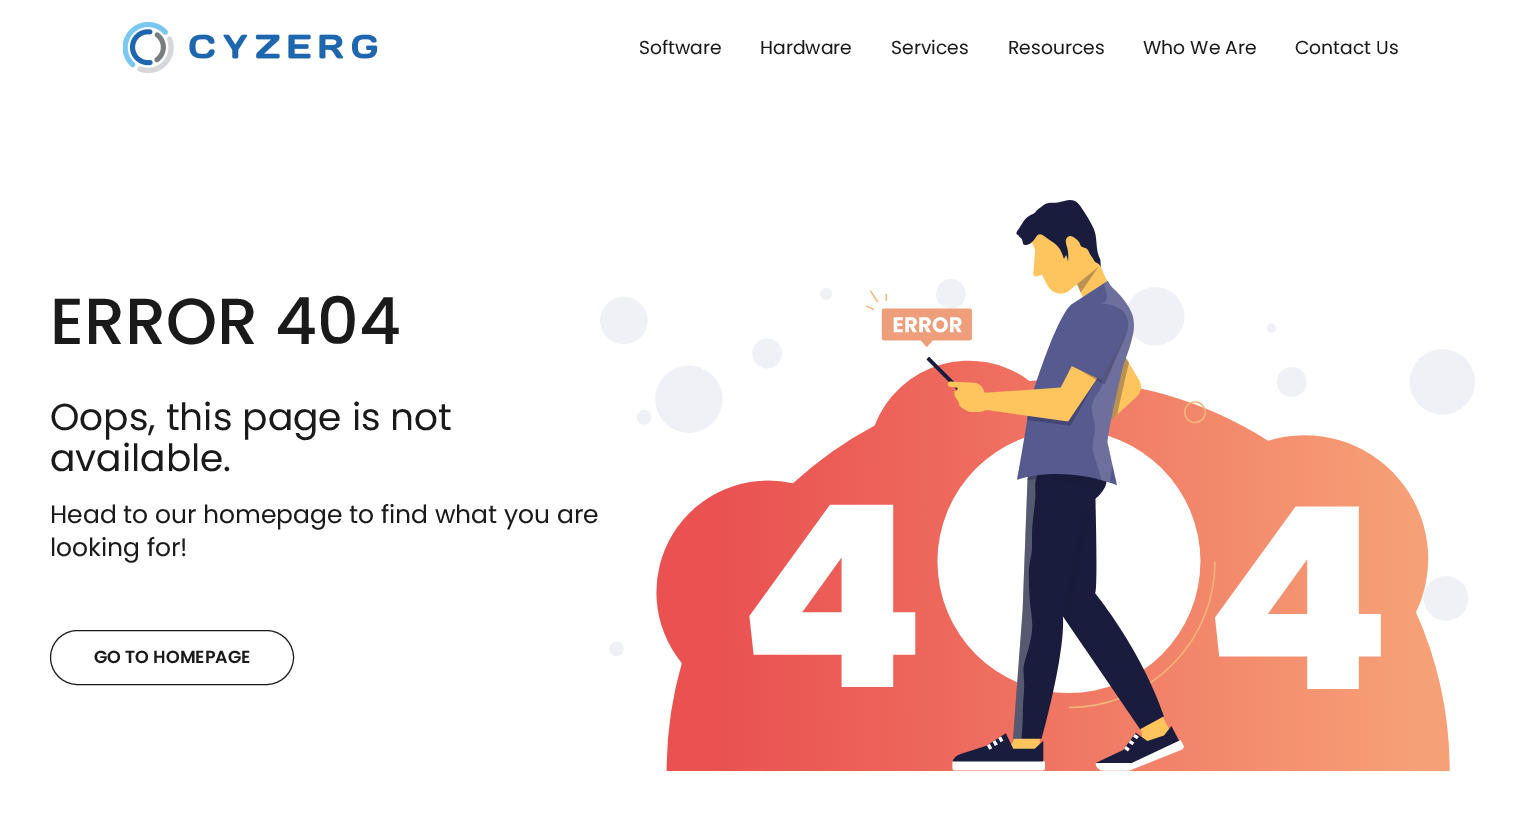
%!PS
<< /PageSize [1524 836] >> setpagedevice
/rgb { 3 { 255 div 3 1 roll } repeat setrgbcolor } def
/font { [ exch dup neg 0 0 3 -1 roll 0 0 ] selectfont } def
/text { moveto show } def
/roundrect { 5 dict begin { /r /h /w /y /x } { exch def } forall
  x r add y moveto x w add y 2 copy h add r arct x w add y h add x 1 index r arct
  x y h add x y r arct x y 2 copy exch w add exch r arct closepath end } def
/picture { 5 dict begin { /h /w /y /x /name } { exch def } forall
  gsave x y translate w h scale
  w h 8 [w 0 0 h 0 0] name (r) file false 3 colorimage grestore end } def
0 836 translate 1 -1 scale
4 setmiterlimit
255 255 255 rgb
0 0 1524 836 rectfill
(img_01.rgb) 123 21 255 52 picture
26 26 26 rgb
50.5 630.5 243 54 27 roundrect stroke
(img_02.rgb) 600 200 875 571 picture
/Poppins-Regular 18.75 font
(Software) 639 54 text
(Hardware) 760 54 text
(Services) 891 54 text
(Resources) 1008 54 text
(Who We Are) 1143 54 text
(Contact Us) 1295 54 text
/Poppins-Medium 65 font
(ERROR 404) 50 344 text
/Poppins-Regular 37.5 font
(Oops, this page is not) 50 430 text
(available.) 50 471 text
/Poppins-Regular 25 font
(Head to our homepage to find what you are) 50 523 text
(looking for!) 50 556 text
/Poppins-SemiBold 17.5 font
(GO TO HOMEPAGE) 94 663 text
showpage
